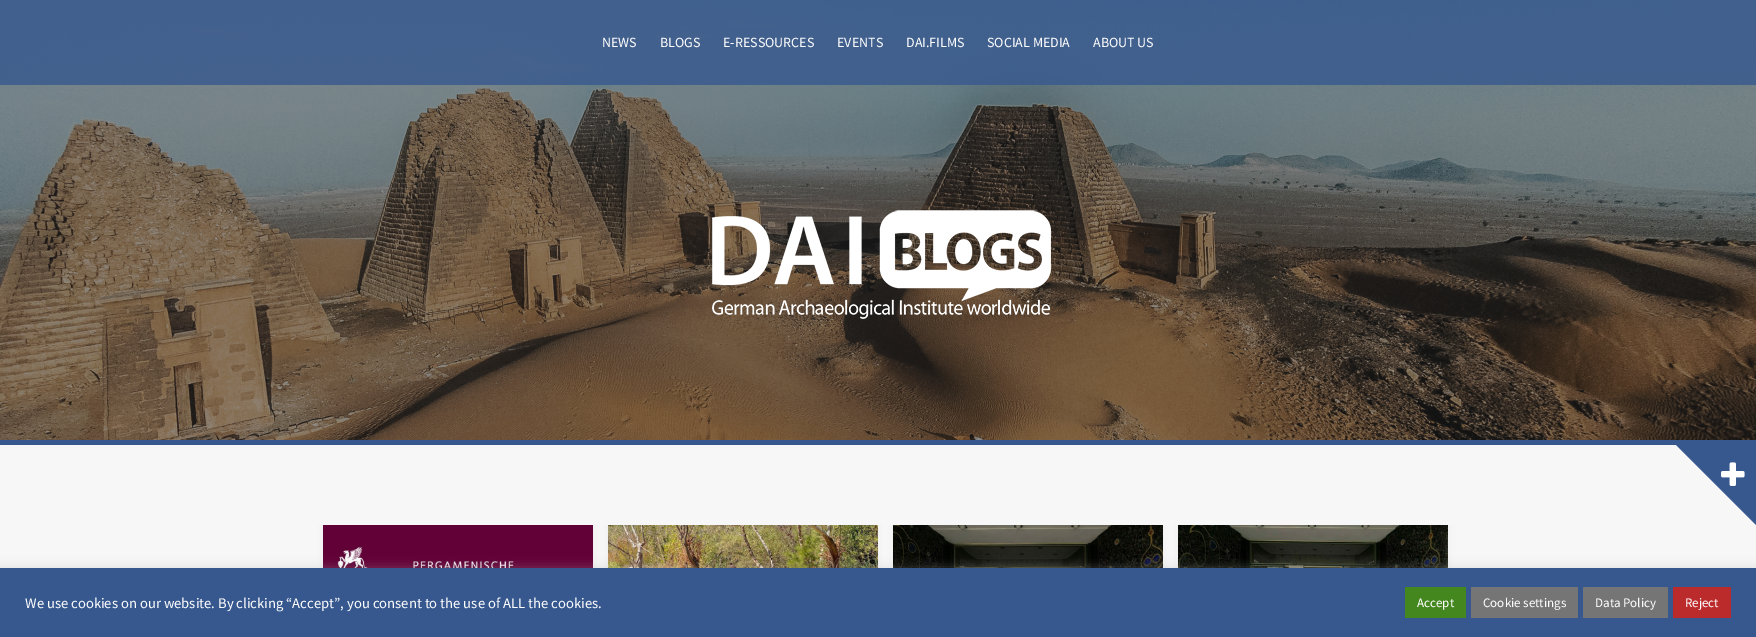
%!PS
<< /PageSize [1756 637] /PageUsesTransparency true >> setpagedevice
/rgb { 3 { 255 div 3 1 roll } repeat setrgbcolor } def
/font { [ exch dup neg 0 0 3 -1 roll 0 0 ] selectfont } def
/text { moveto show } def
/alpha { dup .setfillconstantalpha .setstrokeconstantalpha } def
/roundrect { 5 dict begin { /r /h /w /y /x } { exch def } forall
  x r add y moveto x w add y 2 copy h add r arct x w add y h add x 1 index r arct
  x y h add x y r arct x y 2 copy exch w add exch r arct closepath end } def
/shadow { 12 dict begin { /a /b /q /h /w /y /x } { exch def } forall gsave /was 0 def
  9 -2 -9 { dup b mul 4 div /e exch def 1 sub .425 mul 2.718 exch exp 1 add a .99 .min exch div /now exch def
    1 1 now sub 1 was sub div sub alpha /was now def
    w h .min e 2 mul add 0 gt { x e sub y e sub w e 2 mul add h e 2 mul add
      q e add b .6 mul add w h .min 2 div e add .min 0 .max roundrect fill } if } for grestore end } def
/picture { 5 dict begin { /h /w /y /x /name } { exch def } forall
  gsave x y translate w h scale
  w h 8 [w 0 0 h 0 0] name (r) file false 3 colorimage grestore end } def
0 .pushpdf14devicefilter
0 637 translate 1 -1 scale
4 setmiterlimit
247 247 247 rgb
0 0 1756 637 rectfill
35 35 35 rgb
0 0 1756 440 rectfill
55 88 142 rgb
0 440 1756 5 rectfill
(img_01.rgb) 0 0 1756 440 picture
0.8 alpha
0 0 1756 85 rectfill
1 alpha
(img_02.rgb) 712 210 339 109 picture
1756 445 moveto 0 80 rlineto -80 -80 rlineto closepath fill
(img_03.rgb) 1721 462 24 24 picture
gsave
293 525 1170 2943 rectclip
130 142 148 rgb
323 525 270 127 0 5 0.1 shadow
grestore
(img_04.rgb) 323 525 270 43 picture
gsave
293 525 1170 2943 rectclip
130 142 148 rgb
608 525 270 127 0 5 0.1 shadow
grestore
(img_05.rgb) 608 525 270 43 picture
gsave
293 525 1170 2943 rectclip
130 142 148 rgb
893 525 270 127 0 5 0.1 shadow
grestore
(img_06.rgb) 893 525 270 43 picture
gsave
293 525 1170 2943 rectclip
130 142 148 rgb
1178 525 270 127 0 5 0.1 shadow
grestore
(img_07.rgb) 1178 525 270 43 picture
172 171 171 rgb
0 567 1756 69 0 5 0.3 shadow
55 88 142 rgb
0 568 1756 69 rectfill
69 135 31 rgb
1405 587 61 31 rectfill
117 117 117 rgb
1471 587 107 31 rectfill
1583 587 85 31 rectfill
188 43 43 rgb
1673 587 58 31 rectfill
/SourceSansPro-Regular 14 font
255 255 255 rgb
(NEWS) 602 47 text
(BLOGS) 660 47 text
(E-RESSOURCES) 723 47 text
(EVENTS) 837 47 text
(DAI.FILMS) 906 47 text
(SOCIAL MEDIA) 987 47 text
(ABOUT US) 1093 47 text
/SourceSansPro-Regular 14.65 font
(We use cookies on our website. By clicking “Accept”, you consent to the use of ALL the cookies.) 25 608 text
/SourceSansPro-Regular 13 font
(Accept) 1417 607 text
(Cookie settings) 1483 607 text
(Data Policy) 1595 607 text
(Reject) 1685 607 text
.poppdf14devicefilter showpage
